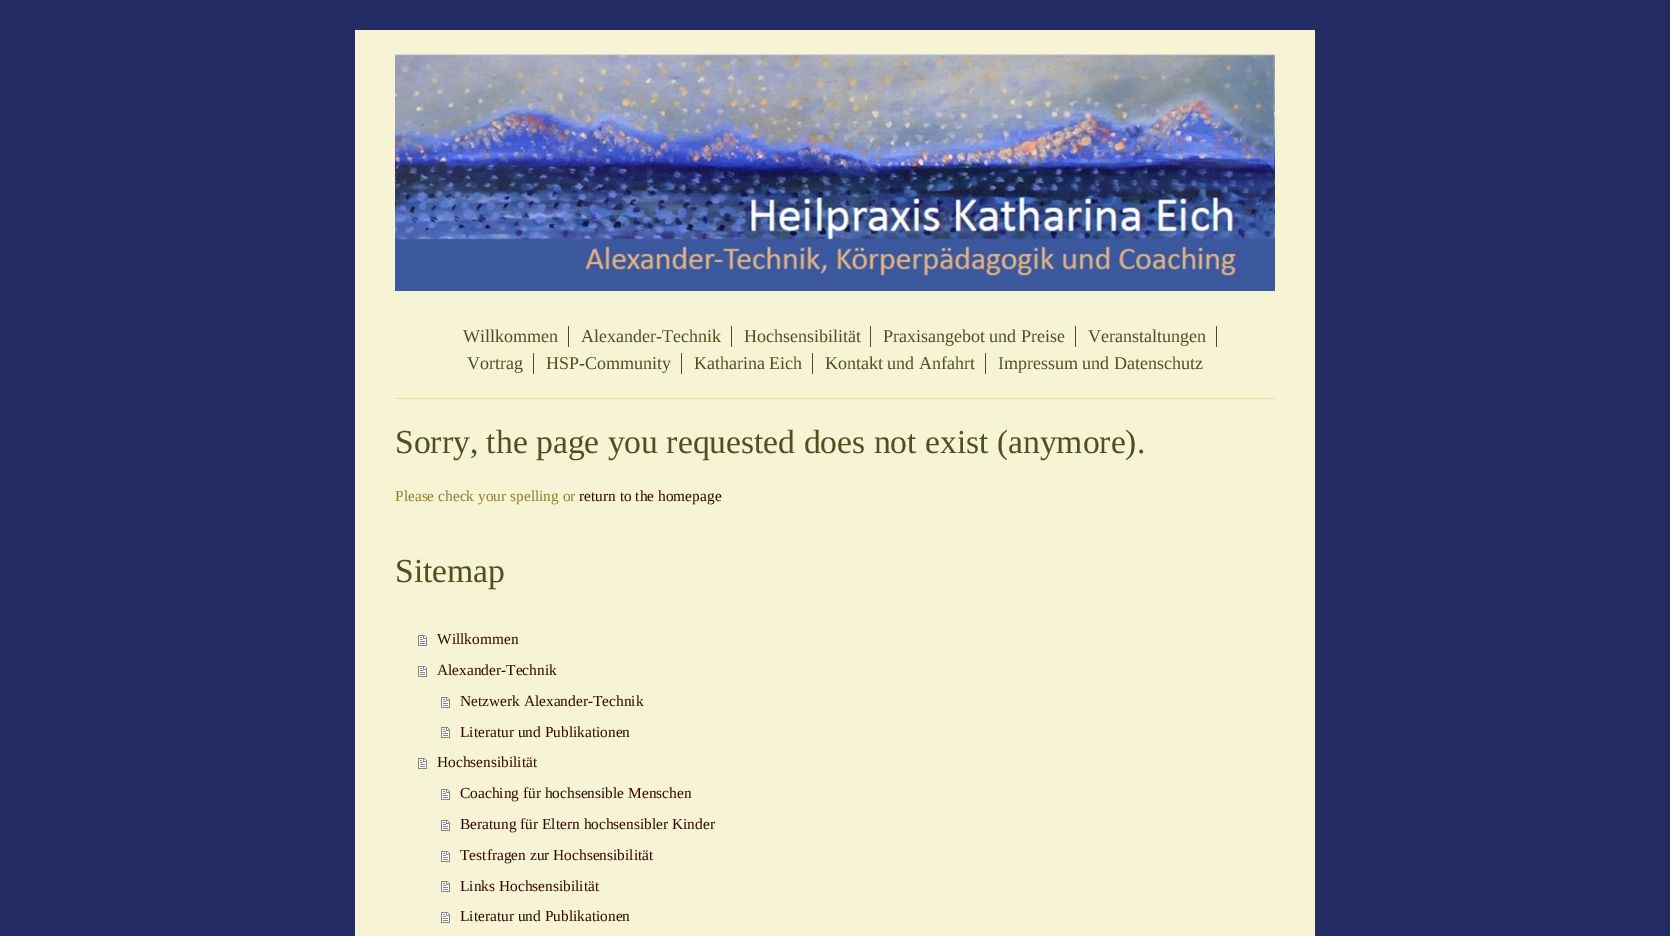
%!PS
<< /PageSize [1670 936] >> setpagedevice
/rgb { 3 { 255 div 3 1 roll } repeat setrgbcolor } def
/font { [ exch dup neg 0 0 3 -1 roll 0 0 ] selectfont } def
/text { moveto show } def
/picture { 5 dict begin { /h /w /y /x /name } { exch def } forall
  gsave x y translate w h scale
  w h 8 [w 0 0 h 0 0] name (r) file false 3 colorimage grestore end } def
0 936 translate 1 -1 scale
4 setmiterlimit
34 43 98 rgb
0 0 1670 936 rectfill
247 243 213 rgb
355 30 960 906 rectfill
(img_01.rgb) 395 54 880 237 picture
236 226 155 rgb
395 398 880 1 rectfill
83 77 32 rgb
568 326 1 21 rectfill
731 326 1 21 rectfill
870 326 1 21 rectfill
1075 326 1 21 rectfill
1216 326 1 21 rectfill
533 353 1 21 rectfill
681 353 1 21 rectfill
812 353 1 21 rectfill
985 353 1 21 rectfill
(img_02.rgb) 418 635 9 11 picture
(img_02.rgb) 418 666 9 11 picture
(img_02.rgb) 441 697 9 11 picture
(img_02.rgb) 441 727 9 11 picture
(img_02.rgb) 418 758 9 11 picture
(img_02.rgb) 441 789 9 11 picture
(img_02.rgb) 441 820 9 11 picture
(img_02.rgb) 441 851 9 11 picture
(img_02.rgb) 441 881 9 11 picture
(img_02.rgb) 441 912 9 11 picture
/LiberationSerif-Regular 18 font
(Willkommen) 463 342 text
(Alexander-Technik) 581 342 text
(Hochsensibilität) 744 342 text
(Praxisangebot und Preise) 883 342 text
(Veranstaltungen) 1088 342 text
(Vortrag) 467 369 text
(HSP-Community) 546 369 text
(Katharina Eich) 694 369 text
(Kontakt und Anfahrt) 825 369 text
(Impressum und Datenschutz) 998 369 text
/LiberationSerif-Regular 33.6 font
(Sorry, the page you requested does not exist \(anymore\).) 395 453 text
/LiberationSerif-Regular 15.4 font
141 130 43 rgb
(Please check your spelling or) 395 501 text
50 10 6 rgb
(return to the homepage) 579 501 text
/LiberationSerif-Regular 33.6 font
83 77 32 rgb
(Sitemap) 395 582 text
/LiberationSerif-Regular 15.4 font
50 10 6 rgb
(Willkommen) 437 644 text
(Alexander-Technik) 437 675 text
(Netzwerk Alexander-Technik) 460 706 text
(Literatur und Publikationen) 460 737 text
(Hochsensibilität) 437 767 text
(Coaching für hochsensible Menschen) 460 798 text
(Beratung für Eltern hochsensibler Kinder) 460 829 text
(Testfragen zur Hochsensibilität) 460 860 text
(Links Hochsensibilität) 460 891 text
(Literatur und Publikationen) 460 921 text
showpage
